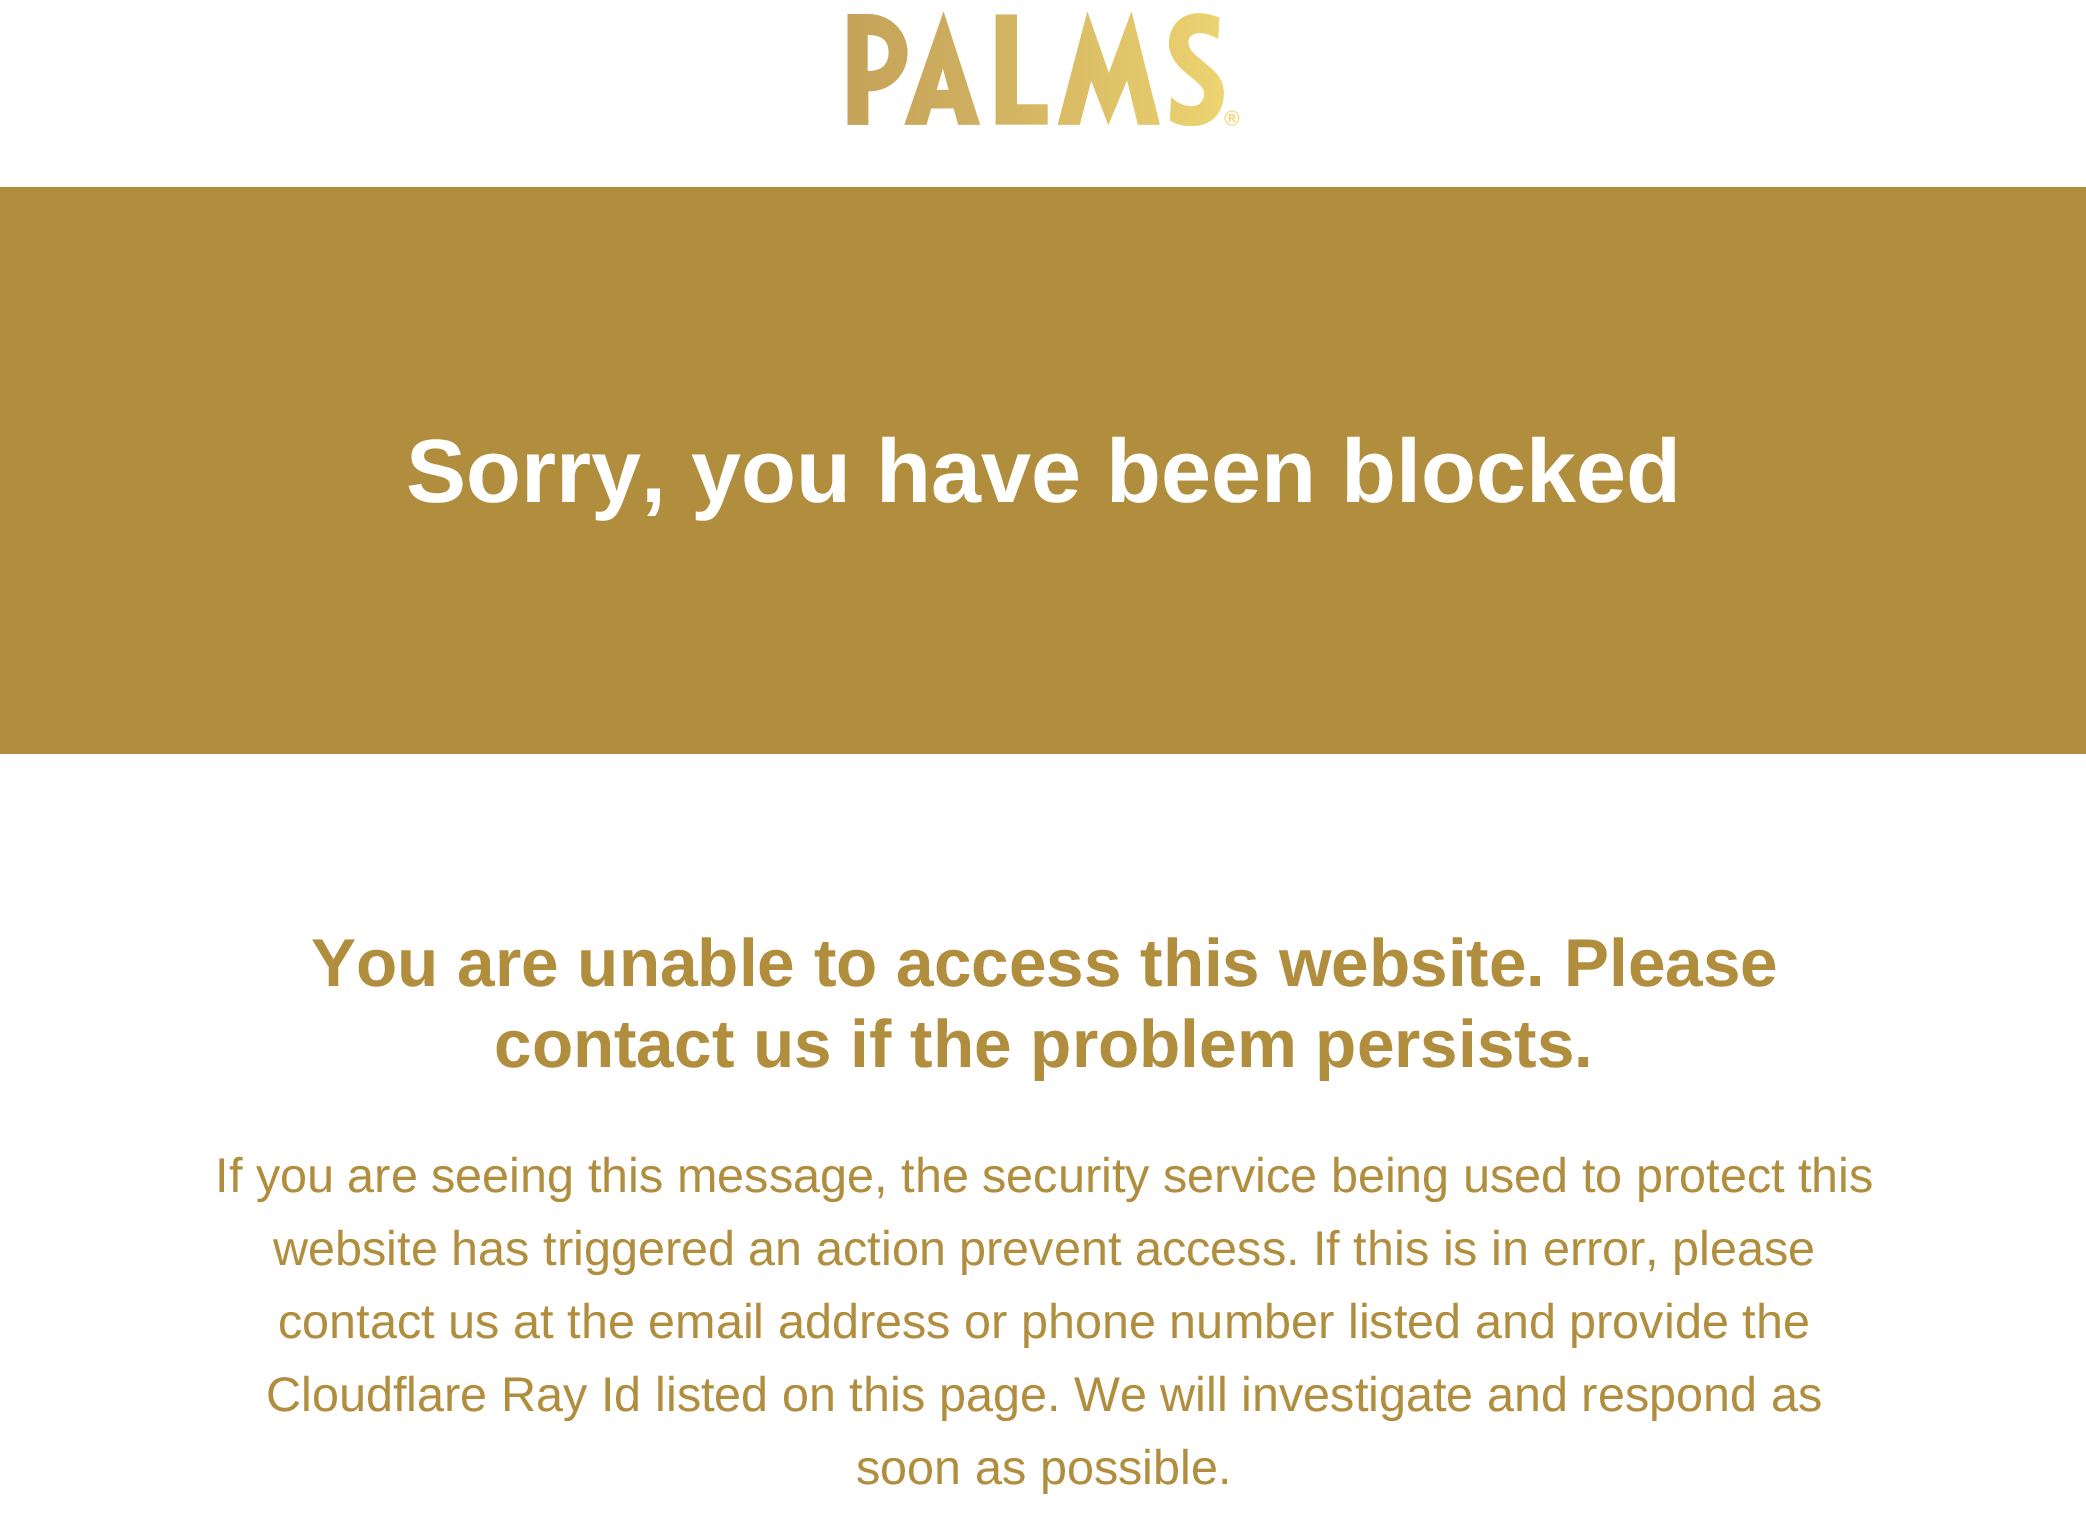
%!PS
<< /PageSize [2086 1524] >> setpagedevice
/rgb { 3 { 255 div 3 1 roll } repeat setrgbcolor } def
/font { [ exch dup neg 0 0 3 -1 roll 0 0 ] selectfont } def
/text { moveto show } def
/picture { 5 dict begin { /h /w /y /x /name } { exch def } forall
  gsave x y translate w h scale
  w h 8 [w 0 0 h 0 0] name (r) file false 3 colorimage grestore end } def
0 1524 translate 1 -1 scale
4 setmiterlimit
255 255 255 rgb
0 0 2086 1524 rectfill
(img_01.rgb) 847 11 393 115 picture
177 141 62 rgb
0 187 2086 567 rectfill
/LiberationSans-Bold 90 font
255 255 255 rgb
(Sorry, you have been blocked) 406 502 text
/LiberationSans-Bold 67.5 font
177 141 62 rgb
(You are unable to access this website. Please) 311 986 text
(contact us if the problem persists.) 494 1067 text
/LiberationSans-Regular 48.6 font
(If you are seeing this message, the security service being used to protect this) 215 1192 text
(website has triggered an action prevent access. If this is in error, please) 273 1265 text
(contact us at the email address or phone number listed and provide the) 278 1338 text
(Cloudflare Ray Id listed on this page. We will investigate and respond as) 266 1411 text
(soon as possible.) 856 1484 text
showpage
